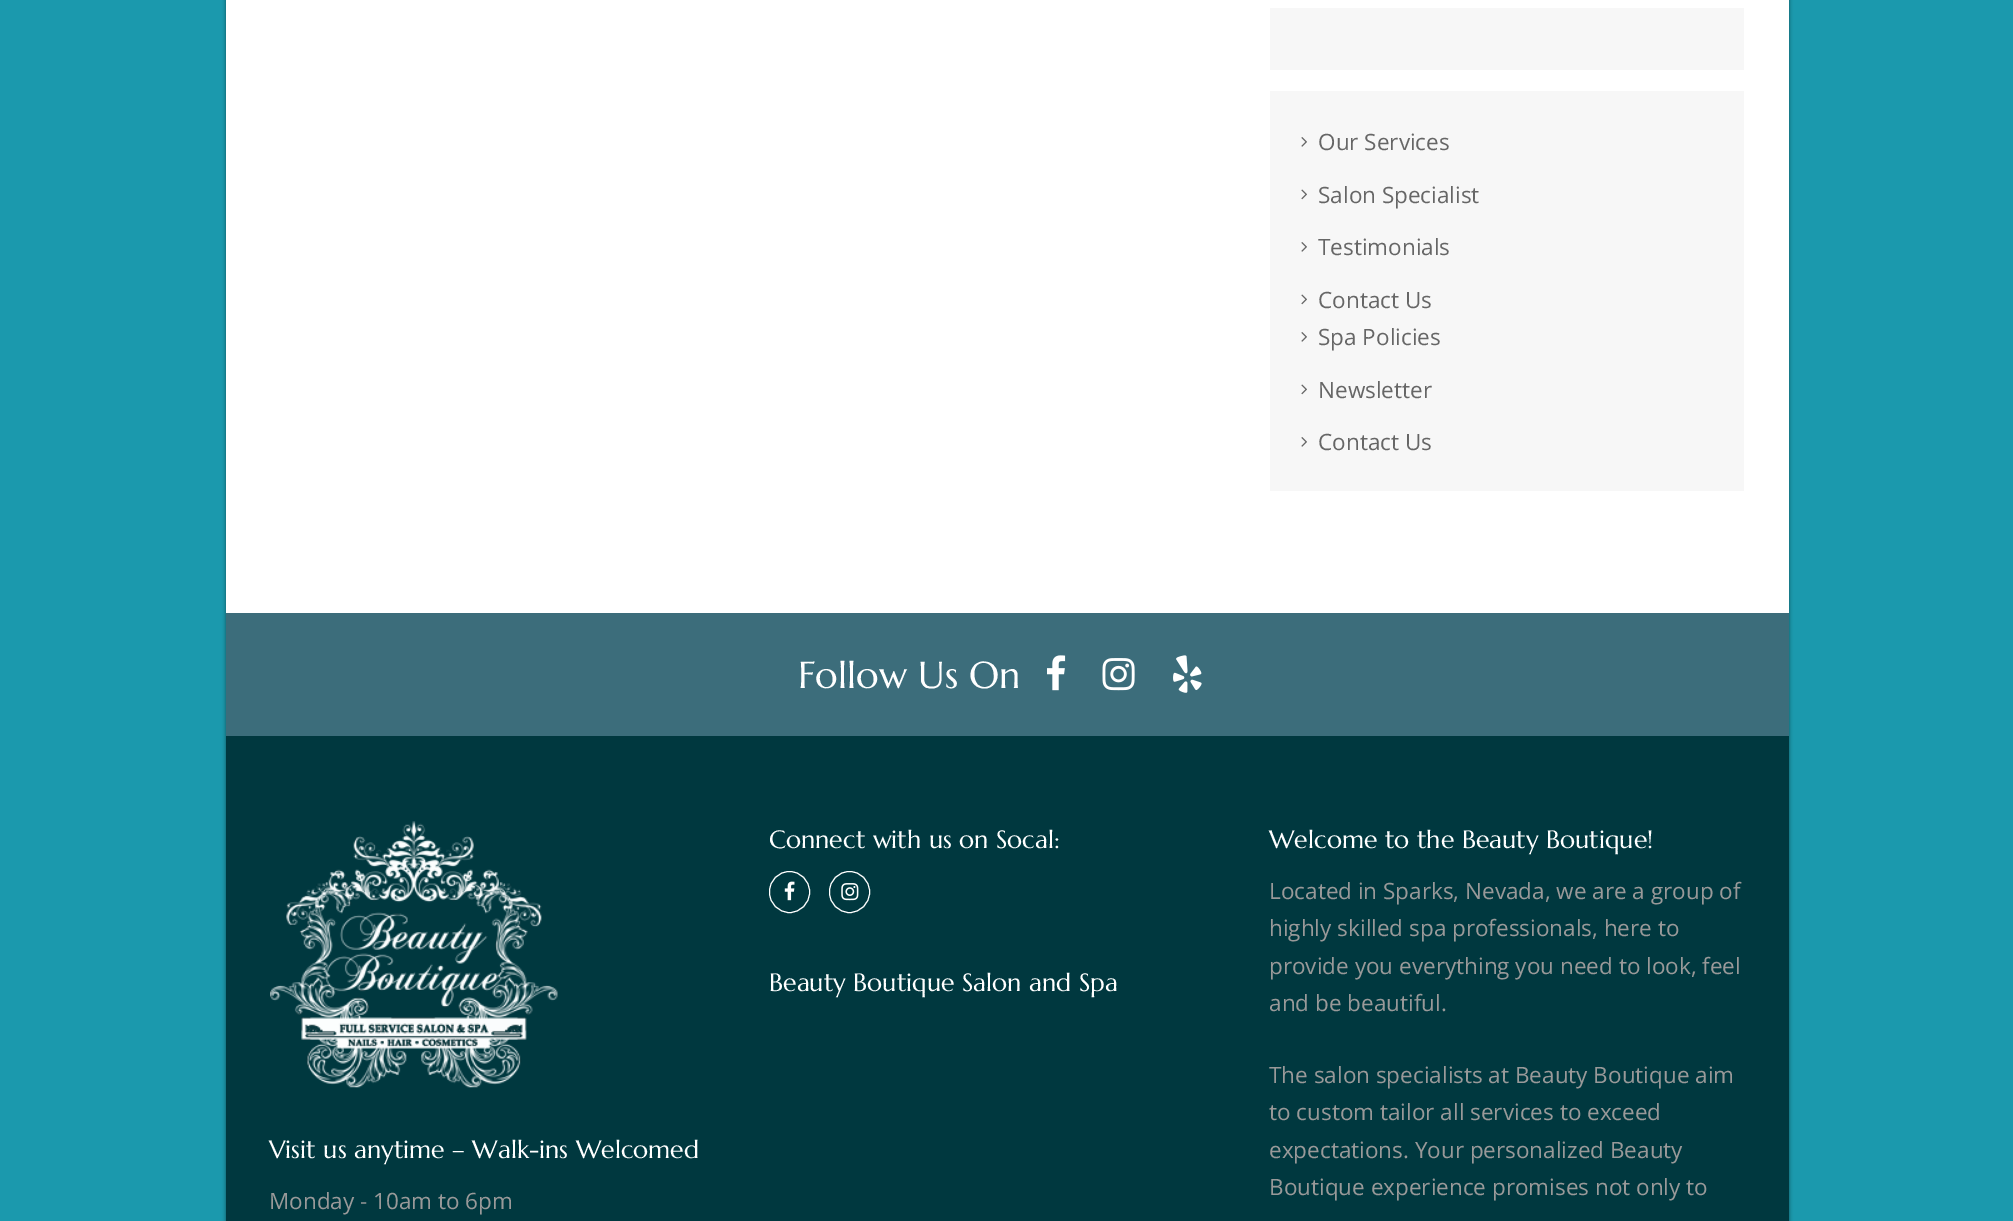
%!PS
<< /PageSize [2013 1221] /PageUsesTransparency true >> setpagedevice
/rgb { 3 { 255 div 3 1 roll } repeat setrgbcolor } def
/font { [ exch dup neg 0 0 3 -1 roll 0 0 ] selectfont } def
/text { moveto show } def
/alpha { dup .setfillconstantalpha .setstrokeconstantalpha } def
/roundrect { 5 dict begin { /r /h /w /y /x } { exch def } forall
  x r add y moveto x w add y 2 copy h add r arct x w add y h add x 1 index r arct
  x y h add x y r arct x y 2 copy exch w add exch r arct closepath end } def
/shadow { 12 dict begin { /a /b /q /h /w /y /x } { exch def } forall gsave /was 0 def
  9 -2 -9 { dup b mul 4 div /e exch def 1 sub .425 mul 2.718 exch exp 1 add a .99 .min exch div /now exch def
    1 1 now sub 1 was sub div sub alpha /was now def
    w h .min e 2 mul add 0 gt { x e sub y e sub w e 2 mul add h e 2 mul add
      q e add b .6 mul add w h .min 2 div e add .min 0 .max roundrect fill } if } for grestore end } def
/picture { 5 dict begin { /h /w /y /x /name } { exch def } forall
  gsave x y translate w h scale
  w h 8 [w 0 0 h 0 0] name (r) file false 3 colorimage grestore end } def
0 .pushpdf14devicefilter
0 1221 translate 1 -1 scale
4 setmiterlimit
27 153 173 rgb
0 0 2013 1221 rectfill
0 0 0 rgb
226 -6 1563 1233 0 2 0.5 shadow
255 255 255 rgb
226 0 1563 613 rectfill
247 247 247 rgb
1270 8 474 62 rectfill
1270 91 474 400 rectfill
(img_01.rgb) 1301 137 6 10 picture
(img_02.rgb) 1301 189 6 11 picture
(img_01.rgb) 1301 242 6 10 picture
(img_02.rgb) 1301 294 6 11 picture
(img_01.rgb) 1301 332 6 10 picture
(img_02.rgb) 1301 384 6 11 picture
(img_01.rgb) 1301 437 6 10 picture
60 109 123 rgb
226 613 1563 123 rectfill
(img_03.rgb) 1047 655 19 36 picture
(img_04.rgb) 1102 658 33 33 picture
(img_05.rgb) 1173 655 29 38 picture
0 56 63 rgb
226 736 1563 485 rectfill
(img_06.rgb) 270 821 288 267 picture
255 255 255 rgb
769.5 871.5 40 41 20 roundrect stroke
(img_07.rgb) 784 881 11 20 picture
829.5 871.5 40 41 20 roundrect stroke
(img_08.rgb) 841 883 18 18 picture
/OpenSans-Regular 22.5 font
102 102 102 rgb
(Our Services) 1318 150 text
(Salon Specialist) 1318 203 text
(Testimonials) 1318 255 text
(Contact Us) 1318 308 text
(Spa Policies) 1318 345 text
(Newsletter) 1318 398 text
(Contact Us) 1318 450 text
/Marcellus-Regular 37.5 font
255 255 255 rgb
(Follow Us On) 798 688 text
/Marcellus-Regular 25 font
(Visit us anytime – Walk-ins Welcomed) 269 1158 text
/OpenSans-Regular 22.5 font
153 153 153 rgb
(Monday - 10am to 6pm) 269 1209 text
/Marcellus-Regular 25 font
255 255 255 rgb
(Connect with us on Socal:) 769 848 text
(Beauty Boutique Salon and Spa) 769 991 text
(Welcome to the Beauty Boutique!) 1269 848 text
/OpenSans-Regular 22.5 font
153 153 153 rgb
(Located in Sparks, Nevada, we are a group of) 1269 899 text
(highly skilled spa professionals, here to) 1269 936 text
(provide you everything you need to look, feel) 1269 974 text
(and be beautiful.) 1269 1011 text
(The salon specialists at Beauty Boutique aim) 1269 1083 text
(to custom tailor all services to exceed) 1269 1120 text
(expectations. Your personalized Beauty) 1269 1158 text
(Boutique experience promises not only to) 1269 1195 text
.poppdf14devicefilter showpage
